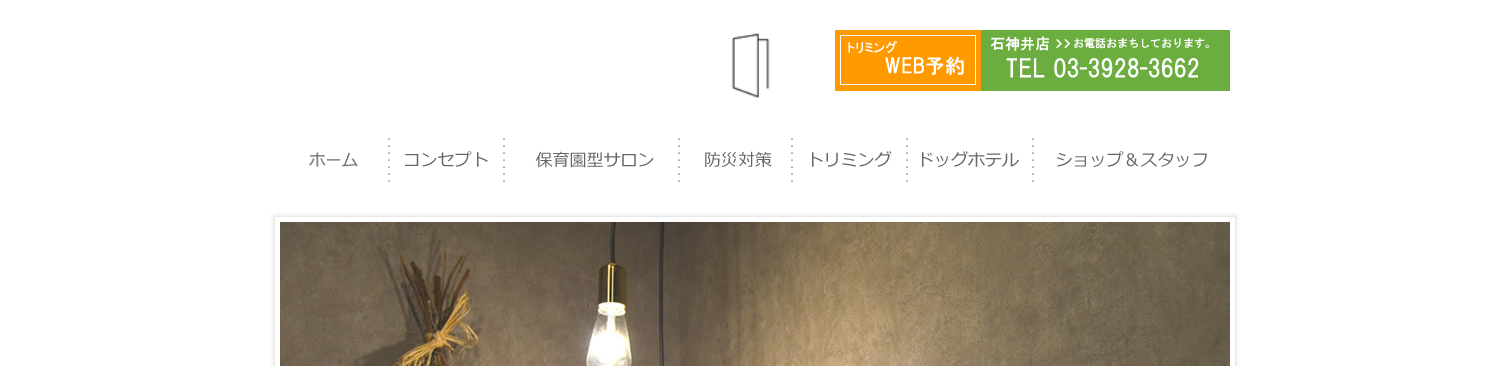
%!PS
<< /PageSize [1510 366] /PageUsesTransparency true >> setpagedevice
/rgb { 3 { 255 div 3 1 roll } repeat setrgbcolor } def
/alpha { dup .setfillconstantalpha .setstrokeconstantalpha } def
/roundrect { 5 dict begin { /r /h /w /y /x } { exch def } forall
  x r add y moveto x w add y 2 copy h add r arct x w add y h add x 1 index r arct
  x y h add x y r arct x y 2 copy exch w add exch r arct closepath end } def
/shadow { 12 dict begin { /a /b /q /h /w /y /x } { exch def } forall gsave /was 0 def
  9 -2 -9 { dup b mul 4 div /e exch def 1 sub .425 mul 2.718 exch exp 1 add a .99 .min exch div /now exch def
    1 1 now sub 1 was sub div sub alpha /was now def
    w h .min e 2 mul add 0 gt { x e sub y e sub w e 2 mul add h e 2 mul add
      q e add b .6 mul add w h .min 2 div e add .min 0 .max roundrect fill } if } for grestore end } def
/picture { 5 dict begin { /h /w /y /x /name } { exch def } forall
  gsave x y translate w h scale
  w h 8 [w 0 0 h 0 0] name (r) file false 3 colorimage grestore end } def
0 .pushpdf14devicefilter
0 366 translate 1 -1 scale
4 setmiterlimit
255 255 255 rgb
0 0 1510 366 rectfill
(img_01.rgb) 731 33 39 66 picture
(img_02.rgb) 835 30 146 61 picture
(img_03.rgb) 981 30 249 61 picture
(img_04.rgb) 308 138 82 44 picture
(img_05.rgb) 405 138 100 44 picture
(img_06.rgb) 535 138 145 44 picture
(img_07.rgb) 705 138 88 44 picture
(img_08.rgb) 812 138 96 44 picture
(img_09.rgb) 922 138 112 44 picture
(img_10.rgb) 1056 151 151 16 picture
gsave
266 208 moveto 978 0 rlineto 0 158 rlineto -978 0 rlineto closepath 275 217 moveto 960 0 rlineto 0 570 rlineto -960 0 rlineto closepath eoclip newpath
204 204 204 rgb
275 217 960 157 0 2.5 1 shadow
grestore
(img_11.rgb) 280 222 950 144 picture
.poppdf14devicefilter showpage
